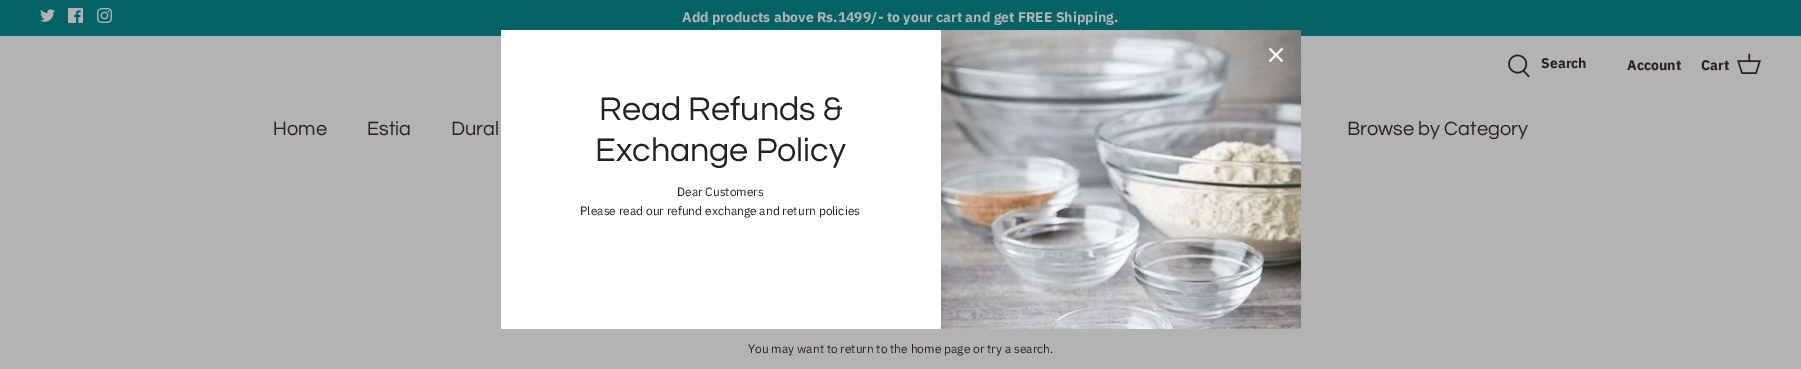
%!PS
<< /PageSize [1801 369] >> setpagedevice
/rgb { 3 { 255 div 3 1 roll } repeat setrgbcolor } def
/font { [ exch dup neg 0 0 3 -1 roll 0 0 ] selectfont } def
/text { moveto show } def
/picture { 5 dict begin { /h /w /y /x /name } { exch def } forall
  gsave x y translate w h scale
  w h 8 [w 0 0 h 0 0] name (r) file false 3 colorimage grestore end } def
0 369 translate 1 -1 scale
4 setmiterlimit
179 179 179 rgb
0 0 1801 369 rectfill
2 98 102 rgb
0 0 1801 36 rectfill
(img_01.rgb) 40 9 15 13 picture
(img_02.rgb) 68 8 15 15 picture
(img_03.rgb) 97 8 15 15 picture
(img_04.rgb) 1508 54 22 24 picture
(img_05.rgb) 1737 53 24 21 picture
255 255 255 rgb
501 30 440 299 rectfill
(img_07.rgb) 941 30 360 299 picture
(img_06.rgb) 1268 47 16 16 picture
/IBMPlexSans-Bold 14 font
179 179 179 rgb
(Add products above Rs.1499/- to your cart and get FREE Shipping.) 682 22 text
41 33 30 rgb
(Search) 1541 68 text
(Account) 1627 70 text
(Cart) 1701 70 text
/Questrial-Regular 20 font
(Home) 273 135 text
(Estia) 367 135 text
(Dural) 451 135 text
(Browse by Category) 1347 135 text
/Questrial-Regular 34 font
34 34 34 rgb
(Read Refunds &) 599 120 text
(Exchange Policy) 595 161 text
/IBMPlexSans-Regular 12 font
(Dear Customers) 677 196 text
(Please read our refund exchange and return policies) 580 215 text
41 33 30 rgb
(You may want to return to the home page or try a search.) 748 353 text
showpage
